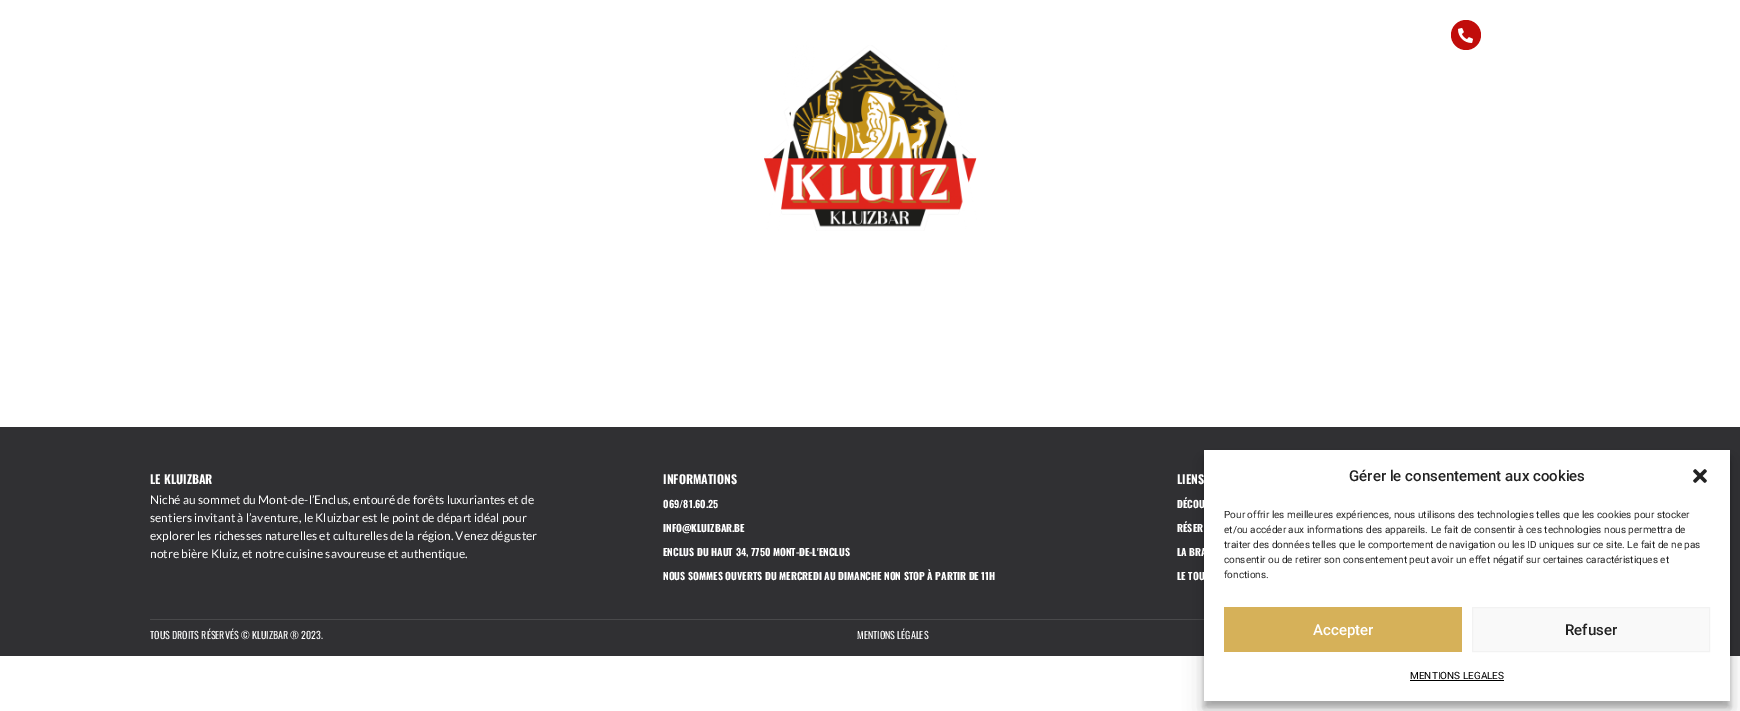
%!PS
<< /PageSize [1740 711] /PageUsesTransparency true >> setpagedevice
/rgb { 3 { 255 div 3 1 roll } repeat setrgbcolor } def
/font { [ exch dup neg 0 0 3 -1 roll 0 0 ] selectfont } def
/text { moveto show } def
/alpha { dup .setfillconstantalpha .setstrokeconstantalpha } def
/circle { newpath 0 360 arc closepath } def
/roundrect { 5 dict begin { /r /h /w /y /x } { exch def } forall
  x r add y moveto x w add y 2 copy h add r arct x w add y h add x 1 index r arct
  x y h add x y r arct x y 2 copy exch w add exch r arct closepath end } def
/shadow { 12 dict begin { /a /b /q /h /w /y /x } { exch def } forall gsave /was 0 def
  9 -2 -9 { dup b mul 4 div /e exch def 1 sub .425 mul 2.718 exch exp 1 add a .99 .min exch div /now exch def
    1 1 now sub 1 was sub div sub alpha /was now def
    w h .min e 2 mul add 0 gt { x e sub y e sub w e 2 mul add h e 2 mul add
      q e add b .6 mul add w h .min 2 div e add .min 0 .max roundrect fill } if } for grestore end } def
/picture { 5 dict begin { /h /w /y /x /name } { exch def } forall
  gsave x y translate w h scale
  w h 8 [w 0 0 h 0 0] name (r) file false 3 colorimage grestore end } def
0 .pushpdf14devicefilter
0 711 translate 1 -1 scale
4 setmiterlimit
255 255 255 rgb
0 0 1740 711 rectfill
193 13 11 rgb
1466 35 15 circle fill
(img_01.rgb) 1458 28 15 15 picture
(img_02.rgb) 764 45 213 186 picture
48 48 51 rgb
0 427 1740 229 rectfill
73 73 75 rgb
150 619 1054 1 rectfill
0 0 0 rgb
1204 456 526 251 0 3 0.23 shadow
1204 460 526 251 0 10 0.19 shadow
255 255 255 rgb
1204 450 526 251 rectfill
(img_03.rgb) 1693 469 14 14 picture
214 177 89 rgb
1224 607 238 45 rectfill
249 249 249 rgb
1472.5 607.5 moveto 237 0 rlineto 0 44 rlineto -237 0 rlineto closepath gsave fill grestore
242 242 242 rgb
stroke
0 0 0 rgb
1410 680 94 1 rectfill
/Oswald-Bold 12 font
255 255 255 rgb
(LE KLUIZBAR) 150 484 text
/Lato-Regular 12 font
(Niché au sommet du Mont-de-l’Enclus, entouré de forêts luxuriantes et de) 150 504 text
(sentiers invitant à l’aventure, le Kluizbar est le point de départ idéal pour) 150 522 text
(explorer les richesses naturelles et culturelles de la région. Venez déguster) 150 540 text
(notre bière Kluiz, et notre cuisine savoureuse et authentique.) 150 558 text
/Oswald-Bold 12 font
(INFORMATIONS) 663 484 text
/Oswald-Bold 10 font
(069/81.60.25) 663 508 text
(INFO@KLUIZBAR.BE) 663 532 text
(ENCLUS DU HAUT 34, 7750 MONT-DE-L'ENCLUS) 663 556 text
(NOUS SOMMES OUVERTS DU MERCREDI AU DIMANCHE NON STOP À PARTIR DE 11H) 663 580 text
/Oswald-Bold 12 font
(LIENS) 1177 484 text
/Oswald-Bold 10 font
(DÉCOU) 1177 508 text
(RÉSER) 1177 532 text
(LA BRA) 1177 556 text
(LE TOU) 1177 580 text
/Oswald-Regular 10 font
(TOUS DROITS RÉSERVÉS © KLUIZBAR ® 2023.) 150 639 text
(MENTIONS LÉGALES) 857 639 text
/Roboto-Medium 15 font
34 34 34 rgb
(Gérer le consentement aux cookies) 1349 481 text
/Roboto-Regular 10 font
(Pour offrir les meilleures expériences, nous utilisons des technologies telles que les cookies pour stocker) 1224 518 text
(et/ou accéder aux informations des appareils. Le fait de consentir à ces technologies nous permettra de) 1224 533 text
(traiter des données telles que le comportement de navigation ou les ID uniques sur ce site. Le fait de ne pas) 1224 548 text
(consentir ou de retirer son consentement peut avoir un effet négatif sur certaines caractéristiques et) 1224 563 text
(fonctions.) 1224 578 text
/Roboto-Medium 15 font
255 255 255 rgb
(Accepter) 1313 635 text
34 34 34 rgb
(Refuser) 1565 635 text
/Roboto-Regular 10 font
0 0 0 rgb
(MENTIONS LEGALES) 1410 679 text
.poppdf14devicefilter showpage
